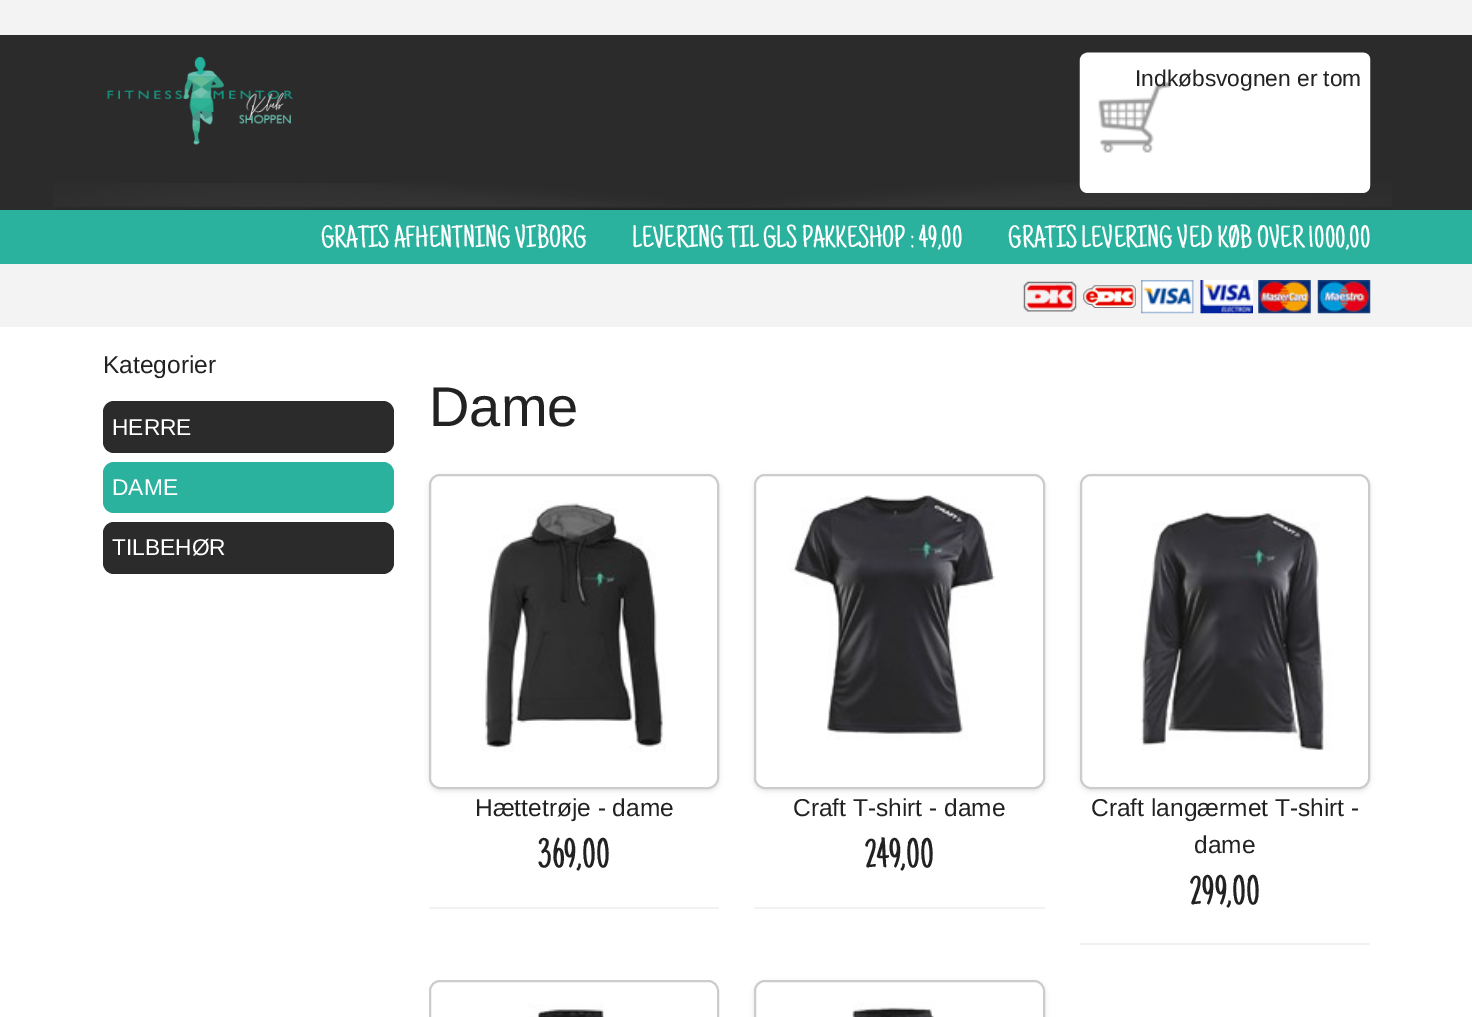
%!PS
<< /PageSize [1472 1017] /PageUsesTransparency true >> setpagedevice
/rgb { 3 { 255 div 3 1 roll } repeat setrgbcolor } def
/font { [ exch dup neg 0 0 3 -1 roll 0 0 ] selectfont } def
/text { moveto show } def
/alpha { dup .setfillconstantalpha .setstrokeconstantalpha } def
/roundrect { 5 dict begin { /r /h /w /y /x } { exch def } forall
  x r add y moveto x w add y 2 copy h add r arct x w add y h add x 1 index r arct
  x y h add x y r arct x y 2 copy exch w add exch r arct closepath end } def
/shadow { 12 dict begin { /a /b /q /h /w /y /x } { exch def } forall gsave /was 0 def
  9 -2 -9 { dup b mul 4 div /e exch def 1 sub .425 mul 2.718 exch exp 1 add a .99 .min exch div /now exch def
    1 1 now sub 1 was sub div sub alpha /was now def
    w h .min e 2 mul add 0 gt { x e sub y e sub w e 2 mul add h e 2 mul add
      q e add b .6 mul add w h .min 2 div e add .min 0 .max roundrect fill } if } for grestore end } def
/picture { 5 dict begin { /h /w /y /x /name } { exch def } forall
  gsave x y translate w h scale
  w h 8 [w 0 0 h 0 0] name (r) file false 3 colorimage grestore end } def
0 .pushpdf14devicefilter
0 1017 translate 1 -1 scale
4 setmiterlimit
243 243 243 rgb
0 0 1472 1017 rectfill
43 43 43 rgb
0 35 1472 175 rectfill
(img_01.rgb) 53 183 1339 27 picture
(img_02.rgb) 107 56 186 89 picture
247 247 247 rgb
1080 53 290 140 7 roundrect fill
(img_03.rgb) 1079 52 292 141 picture
42 178 158 rgb
0 210 1472 54 rectfill
(img_04.rgb) 1023 281 54 31 picture
(img_05.rgb) 1083 285 53 23 picture
(img_06.rgb) 1141 280 53 34 picture
(img_07.rgb) 1200 280 53 34 picture
(img_08.rgb) 1258 280 53 34 picture
(img_09.rgb) 1317 280 54 34 picture
255 255 255 rgb
0 327 1472 690 rectfill
43 43 43 rgb
103 401 291 52 11 roundrect fill
42 178 158 rgb
103 462 291 51 11 roundrect fill
43 43 43 rgb
103 522 291 52 11 roundrect fill
242 242 242 rgb
429 907 290 2 rectfill
0 0 0 rgb
429 476 290 315 11 2.5 0.1 shadow
255 255 255 rgb
430 475 288 313 10 roundrect gsave fill grestore
204 204 204 rgb
2 setlinewidth
stroke
(img_10.rgb) 481 501 185 251 picture
242 242 242 rgb
754 907 291 2 rectfill
0 0 0 rgb
754 476 291 315 11 2.5 0.1 shadow
255 255 255 rgb
755 475 289 313 10 roundrect gsave fill grestore
204 204 204 rgb
stroke
(img_11.rgb) 789 495 206 245 picture
242 242 242 rgb
1080 943 290 2 rectfill
0 0 0 rgb
1080 476 290 315 11 2.5 0.1 shadow
255 255 255 rgb
1081 475 288 313 10 roundrect gsave fill grestore
204 204 204 rgb
stroke
(img_12.rgb) 1140 510 192 241 picture
430 981 288 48 10 roundrect stroke
(img_13.rgb) 528 1003 77 14 picture
0 0 0 rgb
754 982 291 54 11 2.5 0.1 shadow
255 255 255 rgb
755 981 289 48 10 roundrect gsave fill grestore
204 204 204 rgb
stroke
(img_14.rgb) 852 1002 82 15 picture
/LiberationSans-Regular 22.75 font
34 34 34 rgb
(Indkøbsvognen er tom) 1135 86 text
/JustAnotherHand-Regular 31.5 font
255 255 255 rgb
(GRATIS AFHENTNING VIBORG          LEVERING TIL GLS PAKKESHOP : 49,00          GRATIS LEVERING VED KØB OVER 1000,00) 321 247 text
/LiberationSans-Regular 24.5 font
34 34 34 rgb
(Kategorier) 103 373 text
/LiberationSans-Regular 22.75 font
255 255 255 rgb
(HERRE) 112 435 text
(DAME) 112 495 text
(TILBEHØR) 112 555 text
/LiberationSans-Regular 56 font
34 34 34 rgb
(Dame) 429 426 text
/LiberationSans-Regular 24.5 font
(Hættetrøje - dame) 475 816 text
/JustAnotherHand-Regular 42 font
(369,00) 538 867 text
/LiberationSans-Regular 24.5 font
(Craft T-shirt - dame) 793 816 text
/JustAnotherHand-Regular 42 font
(249,00) 865 867 text
/LiberationSans-Regular 24.5 font
(Craft langærmet T-shirt -) 1091 816 text
(dame) 1194 853 text
/JustAnotherHand-Regular 42 font
(299,00) 1190 904 text
.poppdf14devicefilter showpage
